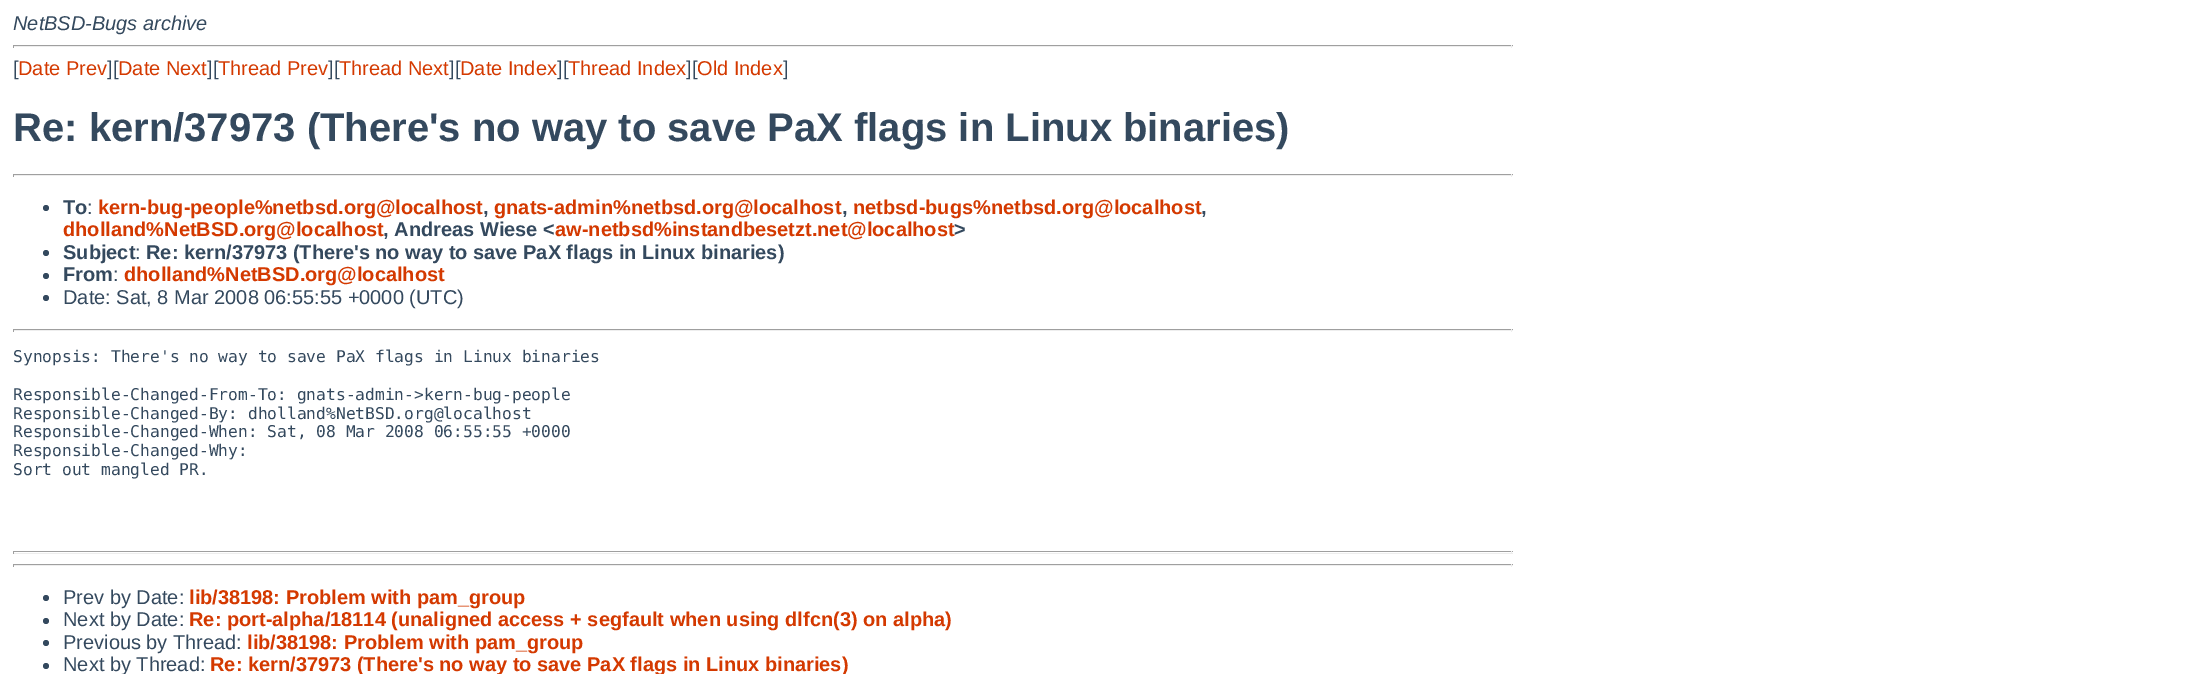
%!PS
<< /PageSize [2190 674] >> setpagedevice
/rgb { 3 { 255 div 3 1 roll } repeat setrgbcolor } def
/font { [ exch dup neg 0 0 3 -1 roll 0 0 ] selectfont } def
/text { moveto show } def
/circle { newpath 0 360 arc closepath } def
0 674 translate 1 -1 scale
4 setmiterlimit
255 255 255 rgb
0 0 2190 674 rectfill
159 159 159 rgb
13 45 1500 1 rectfill
238 238 238 rgb
1511 45 1 3 rectfill
13 46 1500 1 rectfill
159 159 159 rgb
13 45 1 3 rectfill
13 174 1500 1 rectfill
238 238 238 rgb
1511 174 1 3 rectfill
13 175 1500 1 rectfill
159 159 159 rgb
13 174 1 3 rectfill
52 73 94 rgb
46 208 3 circle fill
46 253 3 circle fill
46 276 3 circle fill
46 298 3 circle fill
159 159 159 rgb
13 329 1500 1 rectfill
238 238 238 rgb
1511 329 1 3 rectfill
13 330 1500 1 rectfill
159 159 159 rgb
13 329 1 3 rectfill
13 551 1500 1 rectfill
238 238 238 rgb
1511 551 1 3 rectfill
13 553 1500 1 rectfill
159 159 159 rgb
13 551 1 3 rectfill
13 564 1500 1 rectfill
238 238 238 rgb
1511 564 1 3 rectfill
13 565 1500 1 rectfill
159 159 159 rgb
13 564 1 3 rectfill
52 73 94 rgb
46 598 3 circle fill
46 621 3 circle fill
46 643 3 circle fill
46 666 3 circle fill
/LiberationSans-Italic 20 font
(NetBSD-Bugs archive) 13 30 text
/LiberationSans-Regular 20 font
([) 13 75 text
212 57 0 rgb
(Date Prev) 18 75 text
52 73 94 rgb
(][) 107 75 text
212 57 0 rgb
(Date Next) 118 75 text
52 73 94 rgb
(][) 207 75 text
212 57 0 rgb
(Thread Prev) 218 75 text
52 73 94 rgb
(][) 328 75 text
212 57 0 rgb
(Thread Next) 339 75 text
52 73 94 rgb
(][) 449 75 text
212 57 0 rgb
(Date Index) 460 75 text
52 73 94 rgb
(][) 557 75 text
212 57 0 rgb
(Thread Index) 568 75 text
52 73 94 rgb
(][) 686 75 text
212 57 0 rgb
(Old Index) 697 75 text
52 73 94 rgb
(]) 783 75 text
/LiberationSans-Bold 40 font
(Re: kern/37973 \(There's no way to save PaX flags in Linux binaries\)) 13 141 text
/LiberationSans-Bold 20 font
(To) 63 214 text
/LiberationSans-Regular 20 font
(:) 87 214 text
/LiberationSans-Bold 20 font
212 57 0 rgb
(kern-bug-people%netbsd.org@localhost) 98 214 text
(gnats-admin%netbsd.org@localhost) 494 214 text
(netbsd-bugs%netbsd.org@localhost) 853 214 text
52 73 94 rgb
(,) 483 214 text
(,) 842 214 text
(,) 1201 214 text
212 57 0 rgb
(dholland%NetBSD.org@localhost) 63 236 text
52 73 94 rgb
(, Andreas Wiese <) 383 236 text
212 57 0 rgb
(aw-netbsd%instandbesetzt.net@localhost) 555 236 text
52 73 94 rgb
(>) 954 236 text
(Subject) 63 259 text
/LiberationSans-Regular 20 font
(:) 135 259 text
/LiberationSans-Bold 20 font
(Re: kern/37973 \(There's no way to save PaX flags in Linux binaries\)) 146 259 text
(From) 63 281 text
/LiberationSans-Regular 20 font
(:) 113 281 text
/LiberationSans-Bold 20 font
212 57 0 rgb
(dholland%NetBSD.org@localhost) 124 281 text
/LiberationSans-Regular 20 font
52 73 94 rgb
(Date: Sat, 8 Mar 2008 06:55:55 +0000 \(UTC\)) 63 304 text
/DejaVuSansMono-Regular 16.25 font
(Synopsis: There's no way to save PaX flags in Linux binaries) 13 362 text
(Responsible-Changed-From-To: gnats-admin->kern-bug-people) 13 400 text
(Responsible-Changed-By: dholland%NetBSD.org@localhost) 13 419 text
(Responsible-Changed-When: Sat, 08 Mar 2008 06:55:55 +0000) 13 437 text
(Responsible-Changed-Why:) 13 456 text
(Sort out mangled PR.) 13 475 text
/LiberationSans-Regular 20 font
(Prev by Date:) 63 604 text
/LiberationSans-Bold 20 font
212 57 0 rgb
(lib/38198: Problem with pam_group) 189 604 text
/LiberationSans-Regular 20 font
52 73 94 rgb
(Next by Date:) 63 626 text
/LiberationSans-Bold 20 font
212 57 0 rgb
(Re: port-alpha/18114 \(unaligned access + segfault when using dlfcn\(3\) on alpha\)) 189 626 text
/LiberationSans-Regular 20 font
52 73 94 rgb
(Previous by Thread:) 63 649 text
/LiberationSans-Bold 20 font
212 57 0 rgb
(lib/38198: Problem with pam_group) 247 649 text
/LiberationSans-Regular 20 font
52 73 94 rgb
(Next by Thread:) 63 671 text
/LiberationSans-Bold 20 font
212 57 0 rgb
(Re: kern/37973 \(There's no way to save PaX flags in Linux binaries\)) 210 671 text
showpage
